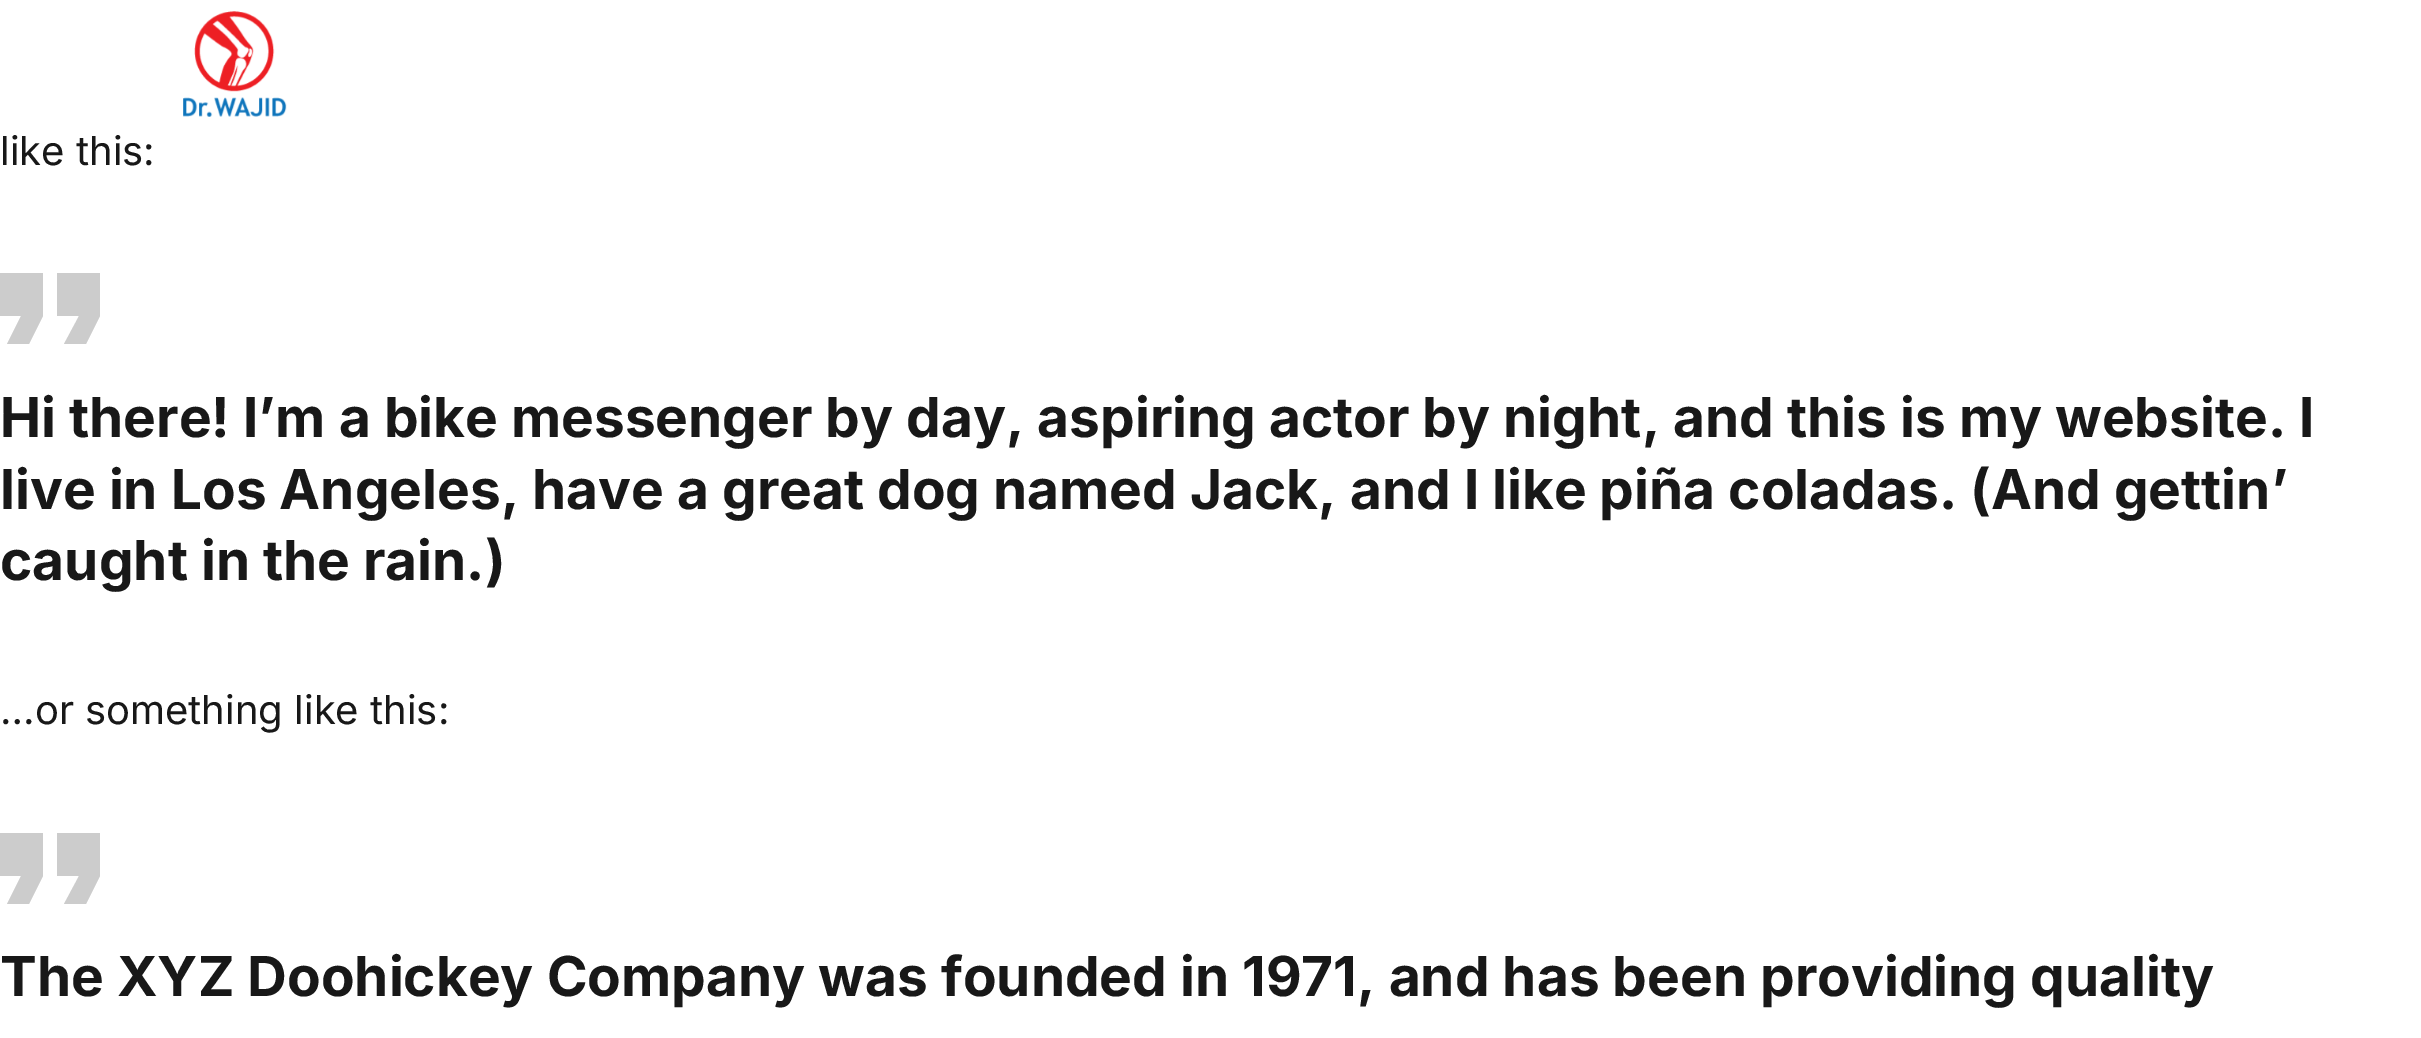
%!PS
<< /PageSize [2421 1038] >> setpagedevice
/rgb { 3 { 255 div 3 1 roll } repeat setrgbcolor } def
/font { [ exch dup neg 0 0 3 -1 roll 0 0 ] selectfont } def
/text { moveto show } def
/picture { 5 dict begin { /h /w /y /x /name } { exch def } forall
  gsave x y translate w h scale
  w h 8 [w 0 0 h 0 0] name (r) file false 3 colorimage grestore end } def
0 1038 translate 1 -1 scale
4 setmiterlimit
255 255 255 rgb
0 0 2421 1038 rectfill
(img_01.rgb) 183 11 104 106 picture
204 204 204 rgb
0 316 moveto 21 0 rlineto -14 28 rlineto 22 0 rlineto 14 -28 rlineto 0 -43 rlineto -43 0 rlineto closepath 57 273 moveto 0 43 rlineto 22 0 rlineto -15 28 rlineto 22 0 rlineto 14 -28 rlineto 0 -43 rlineto closepath fill
0 876 moveto 21 0 rlineto -14 28 rlineto 22 0 rlineto 14 -28 rlineto 0 -43 rlineto -43 0 rlineto closepath 57 833 moveto 0 43 rlineto 22 0 rlineto -15 28 rlineto 22 0 rlineto 14 -28 rlineto 0 -43 rlineto closepath fill
/Inter-Regular 40 font
24 24 24 rgb
(like this:) 0 165 text
255 255 255 rgb
14 134 104 1 rectfill
/Inter-Bold 55 font
24 24 24 rgb
(Hi there! I’m a bike messenger by day, aspiring actor by night, and this is my website. I) 0 437 text
(live in Los Angeles, have a great dog named Jack, and I like piña coladas. \(And gettin’) 0 509 text
(caught in the rain.\)) 0 580 text
/Inter-Regular 40 font
(…or something like this:) 0 724 text
/Inter-Bold 55 font
(The XYZ Doohickey Company was founded in 1971, and has been providing quality) 0 996 text
showpage
